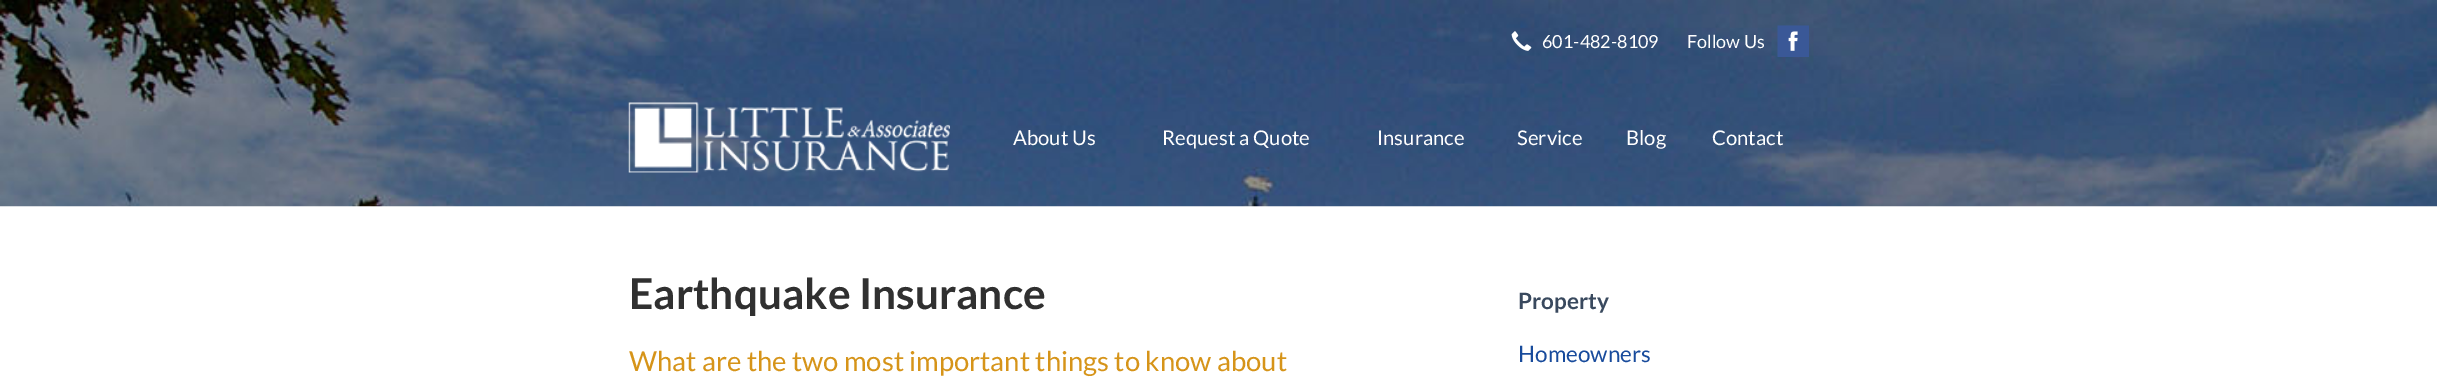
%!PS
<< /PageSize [2437 385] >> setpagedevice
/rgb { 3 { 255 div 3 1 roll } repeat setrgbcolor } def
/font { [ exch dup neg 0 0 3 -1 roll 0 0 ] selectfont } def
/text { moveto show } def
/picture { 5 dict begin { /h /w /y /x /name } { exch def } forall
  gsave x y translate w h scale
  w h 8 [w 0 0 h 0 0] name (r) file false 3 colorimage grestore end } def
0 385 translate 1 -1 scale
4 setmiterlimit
255 255 255 rgb
0 0 2437 385 rectfill
(img_01.rgb) 0 0 2437 207 picture
(img_02.rgb) 1511 31 21 20 picture
1788 31 10 20 rectfill
(img_03.rgb) 1777 25 32 32 picture
(img_04.rgb) 628 102 322 71 picture
/Lato-Regular 18 font
(601-482-8109) 1542 48 text
(Follow Us) 1687 48 text
/Lato-Regular 20.25 font
(About Us) 1013 145 text
(Request a Quote) 1162 145 text
(Insurance) 1377 145 text
(Service) 1517 145 text
(Blog) 1626 145 text
(Contact) 1712 145 text
/Lato-Bold 42.5 font
48 48 48 rgb
(Earthquake Insurance) 629 309 text
/Lato-Regular 27.5 font
214 148 25 rgb
(What are the two most important things to know about) 629 371 text
/Lato-Bold 22.5 font
57 73 94 rgb
(Property) 1518 309 text
/Lato-Regular 22.5 font
24 75 156 rgb
(Homeowners) 1518 362 text
showpage
